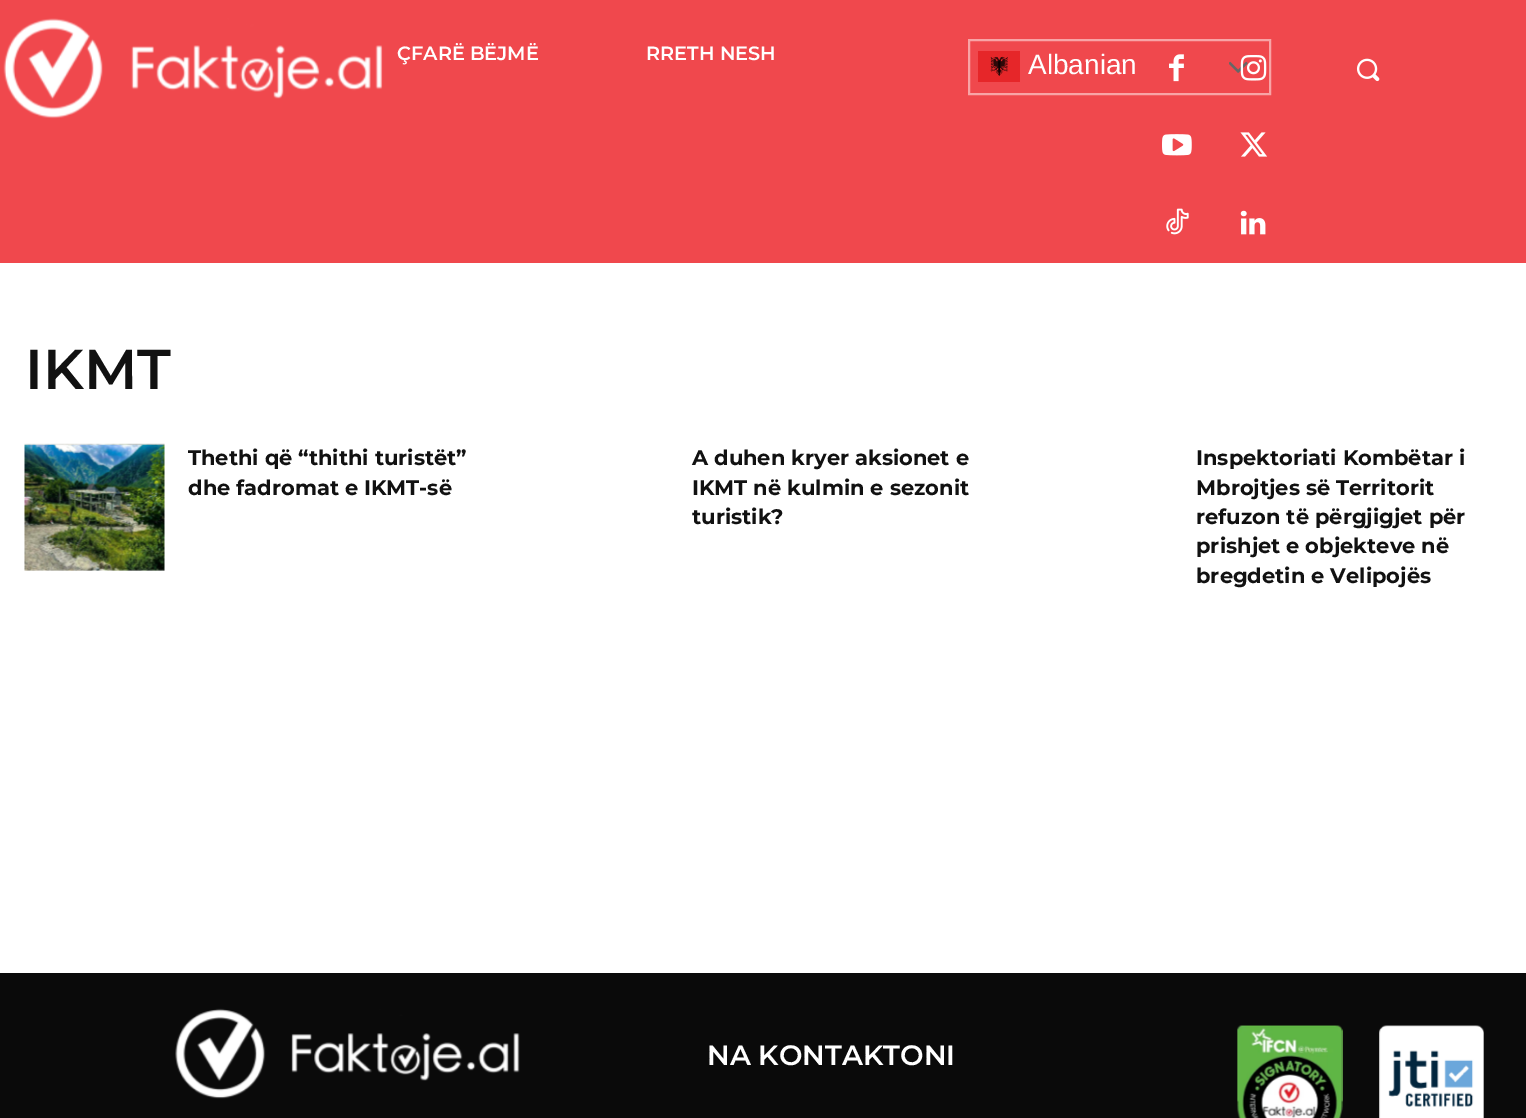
%!PS
<< /PageSize [1526 1118] >> setpagedevice
/rgb { 3 { 255 div 3 1 roll } repeat setrgbcolor } def
/font { [ exch dup neg 0 0 3 -1 roll 0 0 ] selectfont } def
/text { moveto show } def
/picture { 5 dict begin { /h /w /y /x /name } { exch def } forall
  gsave x y translate w h scale
  w h 8 [w 0 0 h 0 0] name (r) file false 3 colorimage grestore end } def
0 1118 translate 1 -1 scale
4 setmiterlimit
255 255 255 rgb
0 0 1526 1118 rectfill
240 72 77 rgb
0 0 1526 263 rectfill
(img_01.rgb) 3 18 380 101 picture
248 164 166 rgb
2 setlinewidth
969 40 301 54 rectstroke
(img_02.rgb) 978 51 42 31 picture
(img_03.rgb) 1229 61 19 12 picture
(img_04.rgb) 1169 54 15 28 picture
(img_05.rgb) 1240 55 27 26 picture
(img_06.rgb) 1162 134 30 22 picture
(img_07.rgb) 1240 132 28 25 picture
(img_08.rgb) 1166 208 23 27 picture
(img_09.rgb) 1240 210 26 25 picture
(img_10.rgb) 1356 58 24 24 picture
(img_11.rgb) 24 443 141 128 picture
10 10 10 rgb
0 973 1526 145 rectfill
(img_12.rgb) 175 1008 345 91 picture
(img_13.rgb) 1237 1025 106 93 picture
(img_14.rgb) 1379 1025 105 93 picture
/Montserrat-SemiBold 19.25 font
255 255 255 rgb
(ÇFARË BËJMË) 397 60 text
(RRETH NESH) 646 60 text
/LiberationSans-Regular 28 font
(Albanian) 1028 74 text
/Montserrat-SemiBold 56 font
17 17 17 rgb
(IKMT) 25 389 text
/Montserrat-Bold 21 font
(Thethi që “thithi turistët”) 188 465 text
(dhe fadromat e IKMT-së) 188 495 text
(A duhen kryer aksionet e) 692 465 text
(IKMT në kulmin e sezonit) 692 495 text
(turistik?) 692 524 text
(Inspektoriati Kombëtar i) 1196 465 text
(Mbrojtjes së Territorit) 1196 495 text
(refuzon të përgjigjet për) 1196 524 text
(prishjet e objekteve në) 1196 553 text
(bregdetin e Velipojës) 1196 583 text
/Montserrat-SemiBold 28 font
255 255 255 rgb
(NA KONTAKTONI) 707 1065 text
showpage
